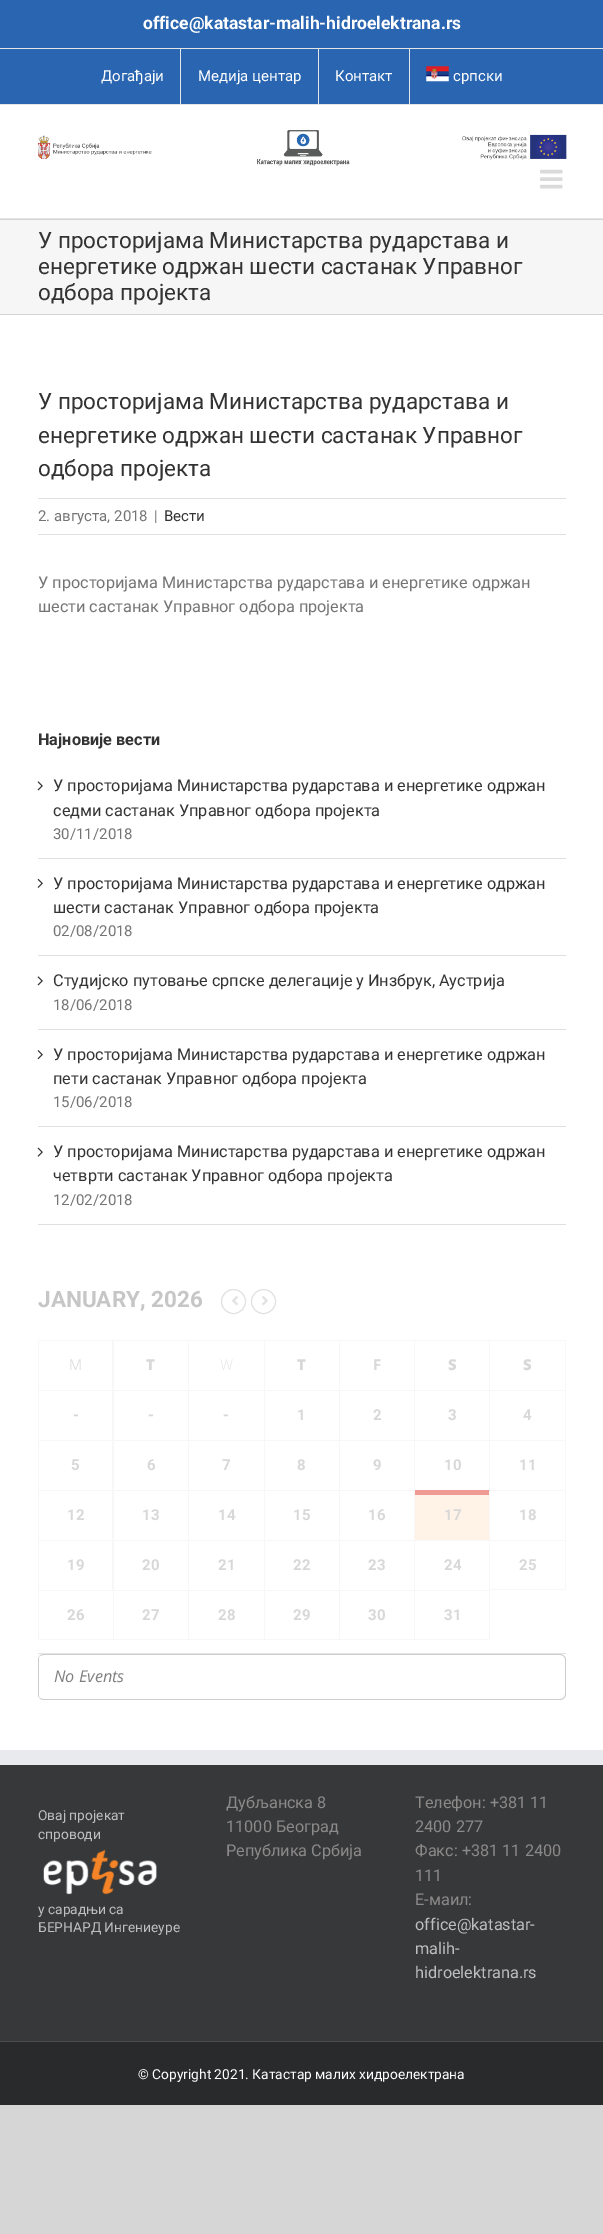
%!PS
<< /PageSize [603 2234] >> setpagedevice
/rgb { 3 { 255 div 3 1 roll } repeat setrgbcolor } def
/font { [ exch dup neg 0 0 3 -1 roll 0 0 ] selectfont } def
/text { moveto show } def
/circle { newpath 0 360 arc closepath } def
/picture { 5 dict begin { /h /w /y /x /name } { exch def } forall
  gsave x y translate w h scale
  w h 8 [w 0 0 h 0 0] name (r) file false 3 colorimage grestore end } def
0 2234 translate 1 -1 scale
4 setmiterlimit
215 214 214 rgb
0 0 603 2234 rectfill
41 101 176 rgb
0 0 603 104 rectfill
229 229 229 rgb
0 104 603 1 rectfill
0 48 603 1 rectfill
180 49 1 55 rectfill
318 49 1 55 rectfill
409 49 1 55 rectfill
(img_01.rgb) 426 66 23 16 picture
255 255 255 rgb
0 105 603 113 rectfill
229 229 229 rgb
0 218 603 1 rectfill
(img_02.rgb) 38 130 529 36 picture
(img_03.rgb) 540 169 23 20 picture
246 246 246 rgb
0 220 603 94 rectfill
210 211 212 rgb
0 219 603 1 rectfill
0 314 603 1 rectfill
255 255 255 rgb
0 315 603 1435 rectfill
224 222 222 rgb
38 498 528 1 rectfill
38 534 528 1 rectfill
38 858 528 1 rectfill
(img_04.rgb) 37 781 6 10 picture
38 955 528 1 rectfill
(img_05.rgb) 37 878 6 10 picture
38 1029 528 1 rectfill
(img_04.rgb) 37 976 6 10 picture
38 1126 528 1 rectfill
(img_06.rgb) 37 1050 6 10 picture
38 1224 528 1 rectfill
(img_07.rgb) 37 1147 6 10 picture
226 226 226 rgb
233.5 1301.5 12 circle stroke
(img_08.rgb) 232 1296 6 10 picture
263.5 1301.5 12 circle stroke
(img_09.rgb) 262 1296 6 10 picture
229 229 229 rgb
38 1653 528 1 rectfill
247 247 247 rgb
38 1340 1 300 rectfill
39 1340 527 1 rectfill
114 1340 moveto 0 50 rlineto -2 -1 rlineto 0 -48 rlineto closepath fill
189 1340 moveto 0 50 rlineto -1 -1 rlineto 0 -48 rlineto closepath fill
265 1340 moveto 0 50 rlineto -1 -1 rlineto 0 -48 rlineto closepath fill
340 1340 moveto 0 50 rlineto -1 -1 rlineto 0 -48 rlineto closepath fill
415 1340 moveto 0 50 rlineto -1 -1 rlineto 0 -48 rlineto closepath fill
490 1340 moveto 0 50 rlineto -1 -1 rlineto 0 -48 rlineto closepath fill
566 1340 moveto 0 50 rlineto -1 -1 rlineto 0 -48 rlineto closepath fill
39 1390 527 1 rectfill
114 1390 moveto 0 50 rlineto -2 -1 rlineto 0 -48 rlineto closepath fill
189 1390 moveto 0 50 rlineto -1 -1 rlineto 0 -48 rlineto closepath fill
265 1390 moveto 0 50 rlineto -1 -1 rlineto 0 -48 rlineto closepath fill
340 1390 moveto 0 50 rlineto -1 -1 rlineto 0 -48 rlineto closepath fill
415 1390 moveto 0 50 rlineto -1 -1 rlineto 0 -48 rlineto closepath fill
490 1390 moveto 0 50 rlineto -1 -1 rlineto 0 -48 rlineto closepath fill
566 1390 moveto 0 50 rlineto -1 -1 rlineto 0 -48 rlineto closepath fill
39 1440 527 1 rectfill
114 1440 moveto 0 50 rlineto -2 -1 rlineto 0 -48 rlineto closepath fill
189 1440 moveto 0 50 rlineto -1 -1 rlineto 0 -48 rlineto closepath fill
265 1440 moveto 0 50 rlineto -1 -1 rlineto 0 -48 rlineto closepath fill
340 1440 moveto 0 50 rlineto -1 -1 rlineto 0 -48 rlineto closepath fill
415 1440 moveto 0 50 rlineto -1 -1 rlineto 0 -48 rlineto closepath fill
490 1440 moveto 0 50 rlineto -1 -1 rlineto 0 -48 rlineto closepath fill
566 1440 moveto 0 50 rlineto -1 -1 rlineto 0 -48 rlineto closepath fill
39 1490 376 1 rectfill
114 1490 moveto 0 50 rlineto -2 -1 rlineto 0 -48 rlineto closepath fill
189 1490 moveto 0 50 rlineto -1 -1 rlineto 0 -48 rlineto closepath fill
265 1490 moveto 0 50 rlineto -1 -1 rlineto 0 -48 rlineto closepath fill
340 1490 moveto 0 50 rlineto -1 -1 rlineto 0 -48 rlineto closepath fill
415 1490 moveto 0 50 rlineto -1 -1 rlineto 0 -48 rlineto closepath fill
255 243 231 rgb
415 1495 75 45 rectfill
158 158 158 rgb
489 1490 1 1 rectfill
247 247 247 rgb
490 1490 moveto 0 50 rlineto -1 -1 rlineto 0 -48 rlineto closepath fill
239 154 147 rgb
415 1490 74 5 rectfill
247 247 247 rgb
490 1490 76 1 rectfill
566 1490 moveto 0 50 rlineto -1 -1 rlineto 0 -48 rlineto closepath fill
39 1540 527 1 rectfill
114 1540 moveto 0 50 rlineto -2 -1 rlineto 0 -48 rlineto closepath fill
189 1540 moveto 0 50 rlineto -1 -1 rlineto 0 -48 rlineto closepath fill
265 1540 moveto 0 50 rlineto -1 -1 rlineto 0 -48 rlineto closepath fill
340 1540 moveto 0 50 rlineto -1 -1 rlineto 0 -48 rlineto closepath fill
415 1540 moveto 0 50 rlineto -1 -1 rlineto 0 -48 rlineto closepath fill
490 1540 moveto 0 50 rlineto -1 -1 rlineto 0 -48 rlineto closepath fill
565 1540 1 50 rectfill
490 1589 76 1 rectfill
39 1590 451 1 rectfill
113 1590 1 50 rectfill
39 1639 75 1 rectfill
188 1590 1 50 rectfill
114 1639 75 1 rectfill
264 1590 1 50 rectfill
189 1639 76 1 rectfill
339 1590 1 50 rectfill
265 1639 75 1 rectfill
414 1590 1 50 rectfill
340 1639 75 1 rectfill
489 1590 1 50 rectfill
415 1639 75 1 rectfill
205 205 205 rgb
44 1654 moveto 516 0 rlineto 3 0 6 3 6 6 rcurveto 0 34 rlineto 0 3 -3 6 -6 6 rcurveto -516 0 rlineto -4 0 -6 -3 -6 -6 rcurveto 0 -34 rlineto 0 -3 2 -6 6 -6 rcurveto closepath 44 1655 moveto 516 0 rlineto 3 0 5 2 5 5 rcurveto 0 34 rlineto 0 3 -2 5 -5 5 rcurveto -516 0 rlineto -4 0 -6 -2 -6 -5 rcurveto 0 -34 rlineto 0 -3 2 -5 6 -5 rcurveto closepath eofill
38 1658 moveto 1 -1 rlineto 0 40 rlineto -1 -1 rlineto closepath fill
54 56 57 rgb
0 1765 603 276 rectfill
233 234 238 rgb
0 1750 603 15 rectfill
(img_10.rgb) 43 1849 114 46 picture
40 42 43 rgb
0 2042 603 63 rectfill
75 76 77 rgb
0 2041 603 1 rectfill
/Roboto-Bold 17.5 font
255 255 255 rgb
(office@katastar-malih-hidroelektrana.rs) 143 29 text
/Roboto-Regular 15 font
(Догађаји) 101 81 text
(Медија центар) 198 81 text
(Контакт) 335 81 text
(српски) 453 81 text
/Roboto-Regular 22.5 font
51 51 51 rgb
(У просторијама Министарства рударстава и) 38 248 text
(енергетике одржан шести састанак Управног) 38 274 text
(одбора пројекта) 38 300 text
(У просторијама Министарства рударстава и) 38 409 text
(енергетике одржан шести састанак Управног) 38 443 text
(одбора пројекта) 38 476 text
/Roboto-Regular 15 font
116 116 116 rgb
(2. августа, 2018) 38 521 text
(|) 154 521 text
51 51 51 rgb
(Вести) 164 521 text
/Roboto-Regular 16.25 font
116 116 116 rgb
(У просторијама Министарства рударстава и енергетике одржан) 38 588 text
(шести састанак Управног одбора пројекта) 38 612 text
/Roboto-Bold 16.25 font
51 51 51 rgb
(Најновије вести) 38 745 text
/Roboto-Regular 16.25 font
(У просторијама Министарства рударстава и енергетике одржан) 53 791 text
(седми састанак Управног одбора пројекта) 53 816 text
/Roboto-Regular 15 font
116 116 116 rgb
(30/11/2018) 53 839 text
/Roboto-Regular 16.25 font
51 51 51 rgb
(У просторијама Министарства рударстава и енергетике одржан) 53 889 text
(шести састанак Управног одбора пројекта) 53 913 text
/Roboto-Regular 15 font
116 116 116 rgb
(02/08/2018) 53 936 text
/Roboto-Regular 16.25 font
51 51 51 rgb
(Студијско путовање српске делегације у Инзбрук, Аустрија) 53 986 text
/Roboto-Regular 15 font
116 116 116 rgb
(18/06/2018) 53 1010 text
/Roboto-Regular 16.25 font
51 51 51 rgb
(У просторијама Министарства рударстава и енергетике одржан) 53 1060 text
(пети састанак Управног одбора пројекта) 53 1084 text
/Roboto-Regular 15 font
116 116 116 rgb
(15/06/2018) 53 1107 text
/Roboto-Regular 16.25 font
51 51 51 rgb
(У просторијама Министарства рударстава и енергетике одржан) 53 1157 text
(четврти састанак Управног одбора пројекта) 53 1181 text
/Roboto-Regular 15 font
116 116 116 rgb
(12/02/2018) 53 1205 text
/Roboto-Bold 22.5 font
198 198 198 rgb
(JANUARY, 2026) 38 1307 text
/NotoSans-Light 15 font
216 216 216 rgb
(M) 69 1370 text
/NotoSans-Black 15 font
(T) 146 1370 text
/NotoSans-Thin 15 font
(W) 220 1370 text
/NotoSans-Black 15 font
(T) 297 1370 text
/NotoSans-Bold 15 font
(F) 373 1370 text
/NotoSans-Black 15 font
(S) 448 1370 text
(S) 523 1370 text
/Roboto-Bold 15 font
(-) 73 1420 text
(-) 148 1420 text
(-) 223 1420 text
(1) 297 1420 text
(2) 373 1420 text
(3) 448 1420 text
(4) 523 1420 text
(5) 71 1470 text
(6) 147 1470 text
(7) 222 1470 text
(8) 297 1470 text
(9) 373 1470 text
(10) 444 1470 text
(11) 519 1470 text
(12) 67 1520 text
(13) 142 1520 text
(14) 218 1520 text
(15) 293 1520 text
(16) 368 1520 text
(17) 444 1520 text
(18) 519 1520 text
(19) 67 1570 text
(20) 142 1570 text
(21) 218 1570 text
(22) 293 1570 text
(23) 368 1570 text
(24) 444 1570 text
(25) 519 1570 text
(26) 67 1620 text
(27) 142 1620 text
(28) 218 1620 text
(29) 293 1620 text
(30) 368 1620 text
(31) 444 1620 text
/OpenSans-Italic 16.25 font
128 128 128 rgb
(No Events) 54 1682 text
/Roboto-Regular 13.75 font
191 191 191 rgb
(Овај пројекат) 38 1820 text
(спроводи) 38 1839 text
(у сарадњи са) 38 1914 text
(БЕРНАРД Ингениеуре) 38 1932 text
/Roboto-Regular 16.25 font
140 137 137 rgb
(Дубљанска 8) 226 1808 text
(11000 Београд) 226 1832 text
(Република Србија) 226 1856 text
(Телефон: +381 11) 415 1808 text
(2400 277) 415 1832 text
(Факс: +381 11 2400) 415 1856 text
(111) 415 1881 text
(Е-маил:) 415 1905 text
191 191 191 rgb
(office@katastar-) 415 1930 text
(malih-) 415 1954 text
(hidroelektrana.rs) 415 1978 text
/Roboto-Regular 13.75 font
255 255 255 rgb
(© Copyright 2021. Катастар малих хидроелектрана) 138 2079 text
showpage
